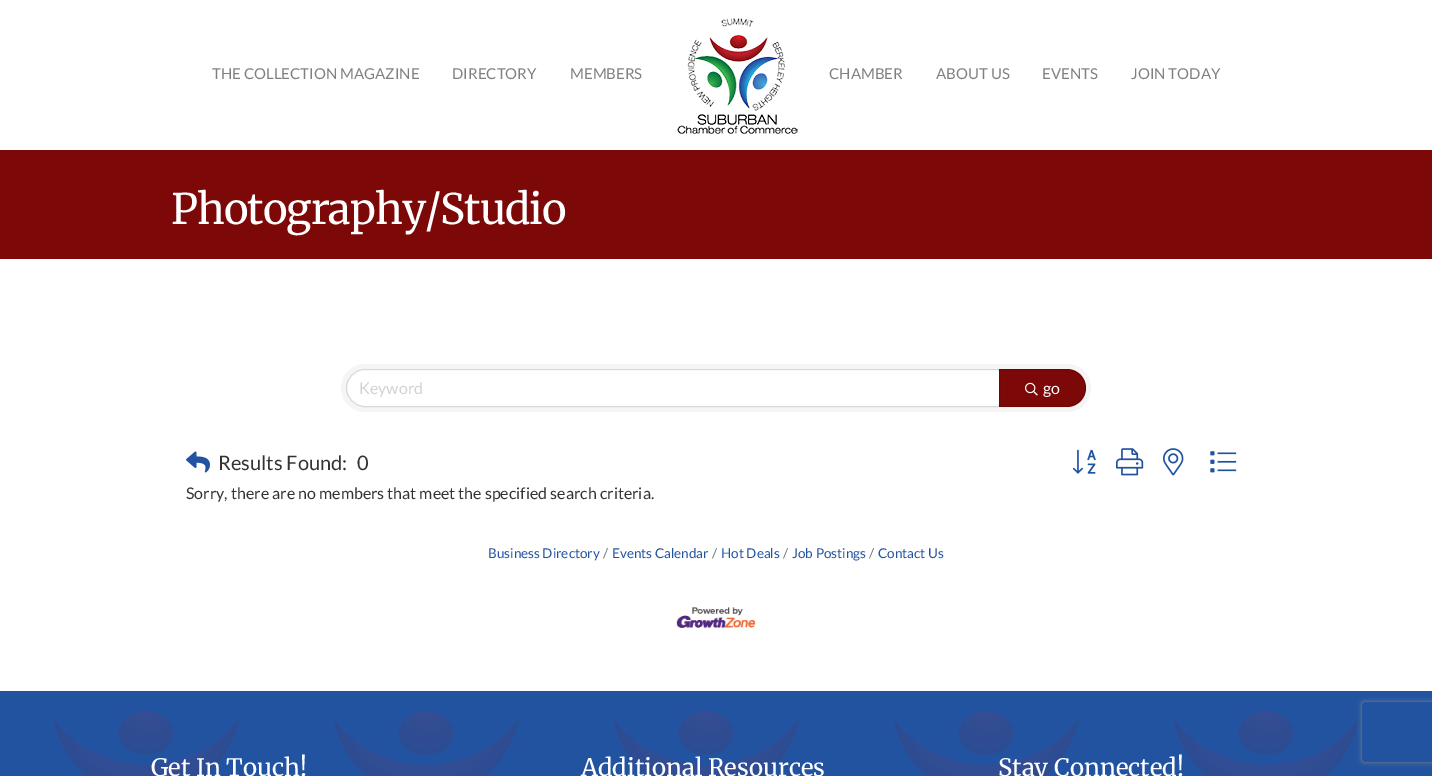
%!PS
<< /PageSize [1432 776] /PageUsesTransparency true >> setpagedevice
/rgb { 3 { 255 div 3 1 roll } repeat setrgbcolor } def
/font { [ exch dup neg 0 0 3 -1 roll 0 0 ] selectfont } def
/text { moveto show } def
/alpha { dup .setfillconstantalpha .setstrokeconstantalpha } def
/roundrect { 5 dict begin { /r /h /w /y /x } { exch def } forall
  x r add y moveto x w add y 2 copy h add r arct x w add y h add x 1 index r arct
  x y h add x y r arct x y 2 copy exch w add exch r arct closepath end } def
/shadow { 12 dict begin { /a /b /q /h /w /y /x } { exch def } forall gsave /was 0 def
  9 -2 -9 { dup b mul 4 div /e exch def 1 sub .425 mul 2.718 exch exp 1 add a .99 .min exch div /now exch def
    1 1 now sub 1 was sub div sub alpha /was now def
    w h .min e 2 mul add 0 gt { x e sub y e sub w e 2 mul add h e 2 mul add
      q e add b .6 mul add w h .min 2 div e add .min 0 .max roundrect fill } if } for grestore end } def
/picture { 5 dict begin { /h /w /y /x /name } { exch def } forall
  gsave x y translate w h scale
  w h 8 [w 0 0 h 0 0] name (r) file false 3 colorimage grestore end } def
0 .pushpdf14devicefilter
0 776 translate 1 -1 scale
4 setmiterlimit
255 255 255 rgb
0 0 1432 776 rectfill
(img_01.rgb) 677 18 121 116 picture
124 8 8 rgb
0 150 1432 109 rectfill
245 245 245 rgb
341 364 750 48 24 roundrect fill
255 255 255 rgb
365 370 moveto 632 0 rlineto 1 0 2 1 2 2 rcurveto 0 32 rlineto 0 1 -1 2 -2 2 rcurveto -632 0 rlineto -10 0 -18 -8 -18 -18 rcurveto 0 -10 8 -18 18 -18 rcurveto closepath fill
0.12 alpha
0 0 0 rgb
365 369.5 moveto 632 0 rlineto 1.5 0 2.5 1 2.5 2.5 rcurveto 0 32 rlineto 0 1.5 -1 2.5 -2.5 2.5 rcurveto -632 0 rlineto -10 0 -18.5 -8.5 -18.5 -18.5 rcurveto 0 -10 8.5 -18.5 18.5 -18.5 rcurveto closepath stroke
1 alpha
124 8 8 rgb
999 369 moveto 68 0 rlineto 10.5 0 19 8.5 19 19 rcurveto 0 10.5 -8.5 19 -19 19 rcurveto -68 0 rlineto closepath fill
0.12 alpha
0 0 0 rgb
999.5 369.5 moveto 67.5 0 rlineto 10 0 18.5 8.5 18.5 18.5 rcurveto 0 10 -8.5 18.5 -18.5 18.5 rcurveto -67.5 0 rlineto closepath stroke
1 alpha
(img_02.rgb) 1025 382 13 14 picture
(img_03.rgb) 186 451 24 22 picture
(img_04.rgb) 1072 449 24 25 picture
(img_05.rgb) 1116 448 28 28 picture
(img_06.rgb) 1163 448 21 28 picture
(img_07.rgb) 1210 451 27 22 picture
(img_08.rgb) 676 607 80 21 picture
33 83 161 rgb
0 691 1432 85 rectfill
(img_09.rgb) 51 709 1337 67 picture
gsave
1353 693 moveto 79 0 rlineto 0 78 rlineto -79 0 rlineto closepath 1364 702 moveto 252 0 rlineto 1 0 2 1 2 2 rcurveto 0 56 rlineto 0 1 -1 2 -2 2 rcurveto -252 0 rlineto -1 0 -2 -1 -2 -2 rcurveto 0 -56 rlineto 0 -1 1 -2 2 -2 rcurveto closepath eoclip newpath
128 128 128 rgb
1362 702 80 60 2 2.5 1 shadow
grestore
/Lato-Regular 15 font
128 128 128 rgb
(THE COLLECTION MAGAZINE) 212 79 text
(DIRECTORY) 452 79 text
(MEMBERS) 570 79 text
(CHAMBER) 829 79 text
(ABOUT US) 936 79 text
(EVENTS) 1042 79 text
(JOIN TODAY) 1131 79 text
/Merriweather-Light 42 font
255 255 255 rgb
171 224 moveto -1 0 (Photography/Studio) ashow
/Lato-Regular 16 font
210 210 210 rgb
(Keyword) 359 394 text
255 255 255 rgb
(go) 1043 394 text
/Lato-Regular 20 font
51 51 51 rgb
(Results Found:) 218 470 text
(0) 357 470 text
/Lato-Regular 16 font
(Sorry, there are no members that meet the specified search criteria.) 186 499 text
/Lato-Regular 13.5 font
33 83 161 rgb
(Business Directory) 488 558 text
108 117 125 rgb
(/) 603 558 text
33 83 161 rgb
(Events Calendar) 612 558 text
108 117 125 rgb
(/) 712 558 text
33 83 161 rgb
(Hot Deals) 721 558 text
108 117 125 rgb
(/) 783 558 text
33 83 161 rgb
(Job Postings) 792 558 text
108 117 125 rgb
(/) 869 558 text
33 83 161 rgb
(Contact Us) 878 558 text
/Merriweather-Light 24 font
255 255 255 rgb
(Get In Touch!) 151 776 text
(Additional Resources) 581 776 text
(Stay Connected!) 998 776 text
.poppdf14devicefilter showpage
